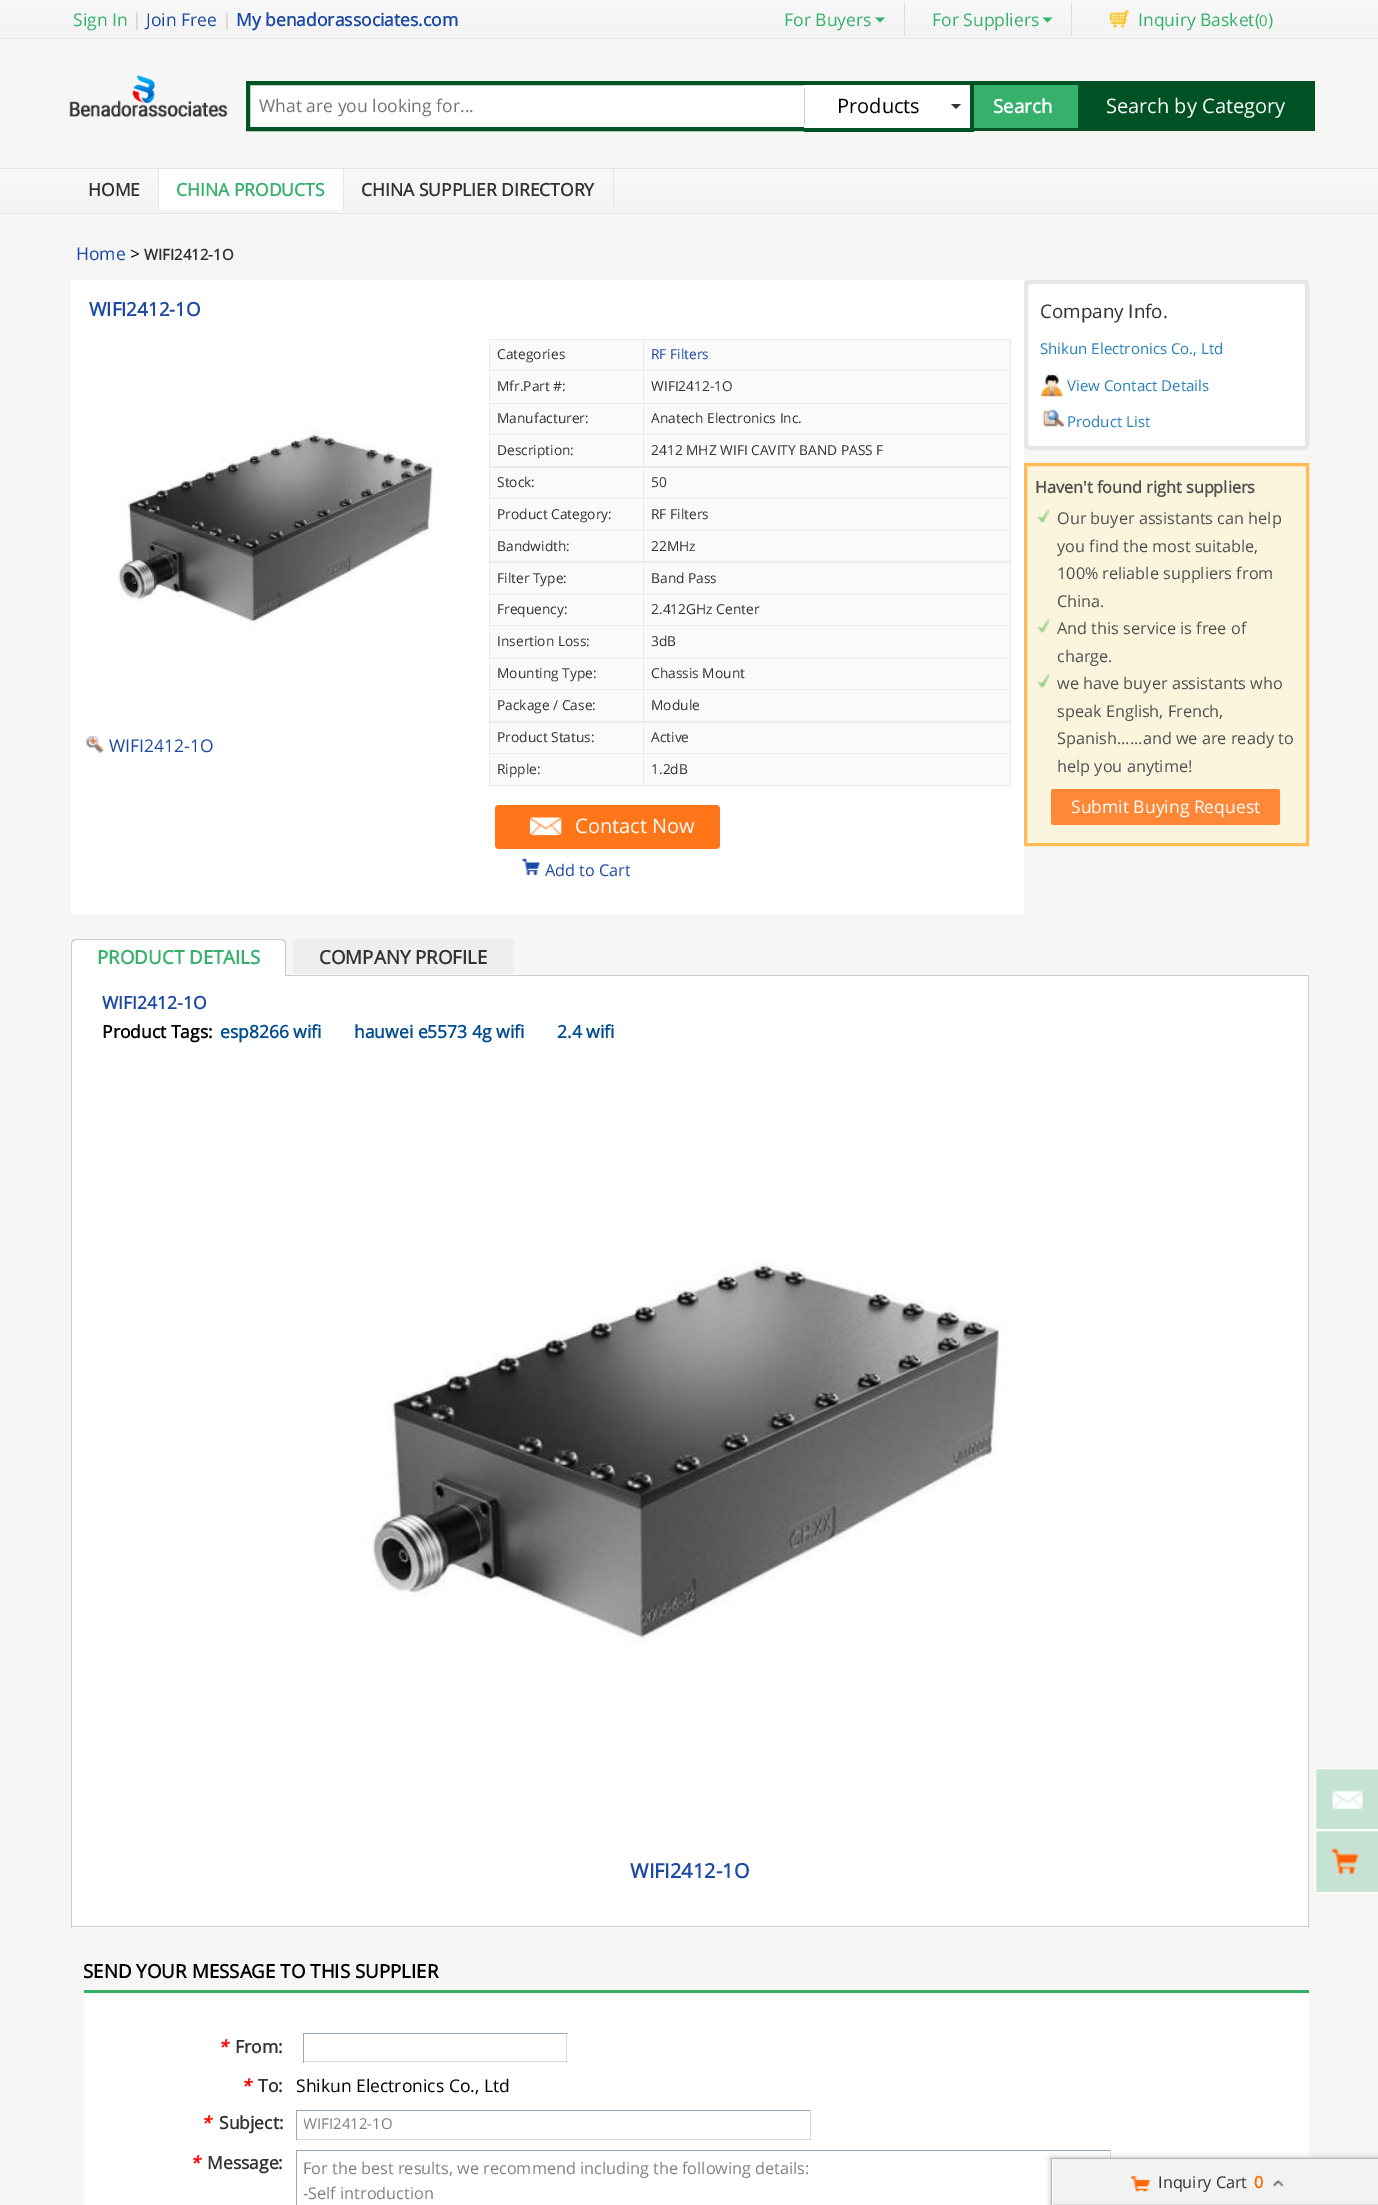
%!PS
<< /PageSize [1378 2205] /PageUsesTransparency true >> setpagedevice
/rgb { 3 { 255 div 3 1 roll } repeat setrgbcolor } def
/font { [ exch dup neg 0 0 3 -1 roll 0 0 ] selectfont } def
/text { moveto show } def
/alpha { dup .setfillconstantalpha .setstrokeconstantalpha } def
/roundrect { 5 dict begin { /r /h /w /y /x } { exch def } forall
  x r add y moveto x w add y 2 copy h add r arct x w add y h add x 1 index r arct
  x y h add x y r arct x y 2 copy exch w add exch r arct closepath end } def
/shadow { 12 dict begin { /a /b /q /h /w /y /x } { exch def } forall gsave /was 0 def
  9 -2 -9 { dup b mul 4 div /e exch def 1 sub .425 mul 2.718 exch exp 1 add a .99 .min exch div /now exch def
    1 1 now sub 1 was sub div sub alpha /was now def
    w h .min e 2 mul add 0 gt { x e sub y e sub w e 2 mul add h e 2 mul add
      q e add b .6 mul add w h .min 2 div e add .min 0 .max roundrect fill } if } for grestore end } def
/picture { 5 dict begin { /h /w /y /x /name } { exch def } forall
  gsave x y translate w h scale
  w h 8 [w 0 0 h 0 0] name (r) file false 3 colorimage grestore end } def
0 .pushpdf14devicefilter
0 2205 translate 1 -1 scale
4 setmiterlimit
246 246 244 rgb
0 0 1378 2205 rectfill
gsave 0 0 moveto 1378 0 rlineto 0 38 rlineto -1378 0 rlineto closepath clip newpath
<< /ShadingType 2 /ColorSpace /DeviceRGB /Coords [689 0 689 38] /Extend [true true] /Function << /FunctionType 2 /Domain [0 1] /C0 [0.976 0.976 0.976] /C1 [0.953 0.953 0.953] /N 1 >> >> shfill grestore
229 229 229 rgb
0 38 1378 1 rectfill
221 221 221 rgb
904 3 1 32 rectfill
53 177 108 rgb
875 17.5 moveto 10 0 rlineto -5 5 rlineto closepath fill
221 221 221 rgb
1071 3 1 32 rectfill
53 177 108 rgb
1042.5 17.5 moveto 10 0 rlineto -5 5 rlineto closepath fill
(img_01.rgb) 1110 9 19 19 picture
(img_02.rgb) 69 75 159 42 picture
255 255 255 rgb
250 85 554 42 rectfill
0 81 36 rgb
4 setlinewidth
248 83 604 46 rectstroke
255 255 255 rgb
804 85 166 43 rectfill
0 81 36 rgb
854 81 120 4 rectfill
970 81 4 50 rectfill
804 128 170 4 rectfill
204 204 204 rgb
804 88 1 37 rectfill
51 51 51 rgb
951 104 moveto 10 0 rlineto -5 5 rlineto closepath fill
0 81 36 rgb
974 81 341 50 rectfill
53 177 108 rgb
974 85 104 43 rectfill
gsave 0 169 moveto 1378 0 rlineto 0 44 rlineto -1378 0 rlineto closepath clip newpath
<< /ShadingType 2 /ColorSpace /DeviceRGB /Coords [689 169 689 213] /Extend [true true] /Function << /FunctionType 2 /Domain [0 1] /C0 [0.976 0.976 0.976] /C1 [0.953 0.953 0.953] /N 1 >> >> shfill grestore
229 229 229 rgb
0 168 1378 1 rectfill
0 213 1378 1 rectfill
230 230 230 rgb
158 169 1 41 rectfill
255 255 255 rgb
159 169 184 41 rectfill
230 230 230 rgb
343 169 1 41 rectfill
613 169 1 41 rectfill
255 255 255 rgb
71 280 953 634 rectfill
(img_03.rgb) 118 429 322 198 picture
(img_04.rgb) 86 736 18 18 picture
235 235 235 rgb
489 339 522 447 rectfill
250 250 250 rgb
490 340 153 30 rectfill
644 340 366 30 rectfill
490 371 153 32 rectfill
644 371 366 32 rectfill
490 404 153 30 rectfill
644 404 366 30 rectfill
490 435 153 31 rectfill
644 435 366 31 rectfill
490 468 153 30 rectfill
644 468 366 30 rectfill
490 499 153 31 rectfill
644 499 366 31 rectfill
490 531 153 30 rectfill
644 531 366 30 rectfill
490 563 153 31 rectfill
644 563 366 31 rectfill
490 595 153 30 rectfill
644 595 366 30 rectfill
490 626 153 32 rectfill
644 626 366 32 rectfill
490 659 153 30 rectfill
644 659 366 30 rectfill
490 690 153 31 rectfill
644 690 366 31 rectfill
490 723 153 30 rectfill
644 723 366 30 rectfill
490 754 153 31 rectfill
644 754 366 31 rectfill
255 117 25 rgb
495 805 225 44 4 roundrect fill
(img_05.rgb) 530 817 32 19 picture
(img_06.rgb) 522 858 18 18 picture
255 255 255 rgb
1026 282 281 166 3 roundrect gsave fill grestore
230 230 230 rgb
stroke
(img_07.rgb) 1041 374 22 23 picture
(img_08.rgb) 1042 410 23 17 picture
251 245 222 rgb
1025.5 464.5 moveto 282 0 rlineto 0 380 rlineto -282 0 rlineto closepath gsave fill grestore
255 187 85 rgb
3 setlinewidth
stroke
(img_09.rgb) 1037 508 13 15 picture
(img_09.rgb) 1037 618 13 15 picture
(img_09.rgb) 1037 673 13 15 picture
255 136 56 rgb
1051 789 229 36 2.5 roundrect fill
204 204 204 rgb
286 975 1023 1 rectfill
255 255 255 rgb
76 939 moveto 205 0 rlineto 3 0 5 2 5 5 rcurveto 0 32 rlineto -215 0 rlineto 0 -32 rlineto 0 -3 2 -5 5 -5 rcurveto closepath fill
204 204 204 rgb
76 939 moveto 205 0 rlineto 3 0 5 2 5 5 rcurveto 0 32 rlineto -215 0 rlineto 0 -32 rlineto 0 -3 2 -5 5 -5 rcurveto closepath 76 940 moveto 205 0 rlineto 2 0 4 2 4 4 rcurveto 0 32 rlineto -213 0 rlineto 0 -32 rlineto 0 -2 2 -4 4 -4 rcurveto closepath eofill
239 238 238 rgb
293 939 221 35 rectfill
255 255 255 rgb
72 976 1236 952 rectfill
204 204 204 rgb
1308 976 1 952 rectfill
71 1926 1238 1 rectfill
71 976 1 952 rectfill
(img_10.rgb) 365 1260 639 383 picture
197 226 210 rgb
1315.5 1768.5 moveto 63 0 rlineto 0 61 rlineto -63 0 rlineto closepath gsave fill grestore
255 255 255 rgb
1 setlinewidth
stroke
(img_11.rgb) 1332 1790 31 20 picture
197 226 210 rgb
1315.5 1830.5 moveto 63 0 rlineto 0 62 rlineto -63 0 rlineto closepath gsave fill grestore
255 255 255 rgb
stroke
(img_12.rgb) 1331 1848 29 27 picture
53 177 108 rgb
84 1990 1225 3 rectfill
255 255 255 rgb
84 1995 1225 210 rectfill
153 170 189 rgb
303 2033 265 1 rectfill
210 220 232 rgb
566 2033 1 30 rectfill
303 2061 265 1 rectfill
153 170 189 rgb
303 2033 1 30 rectfill
296 2110 515 1 rectfill
210 220 232 rgb
810 2110 1 30 rectfill
296 2139 515 1 rectfill
153 170 189 rgb
296 2110 1 30 rectfill
296 2150 815 1 rectfill
210 220 232 rgb
1110 2150 1 8 rectfill
153 170 189 rgb
296 2150 1 55 rectfill
181 181 181 rgb
1051 2158 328 47 0 3 1 shadow
255 255 255 rgb
1052 2159 1 46 rectfill
181 181 181 rgb
1051 2158 327 1 rectfill
1051 2158 1 47 rectfill
242 242 242 rgb
1053 2159 325 45 rectfill
222 222 222 rgb
1053 2204 325 1 rectfill
(img_13.rgb) 1131 2176 20 16 picture
(img_14.rgb) 1273 2179 11 8 picture
/OpenSans-Regular 17.5 font
53 177 108 rgb
(Sign In) 73 26 text
204 204 204 rgb
(|) 132 26 text
28 73 164 rgb
(Join Free) 146 26 text
204 204 204 rgb
(|) 222 26 text
/OpenSans-Bold 17.5 font
28 73 164 rgb
(My benadorassociates.com) 236 26 text
/OpenSans-Regular 17.5 font
53 177 108 rgb
(For Buyers) 784 26 text
(For Suppliers) 932 26 text
(Inquiry Basket\() 1138 26 text
/OpenSans-Regular 15 font
(0) 1259 26 text
/OpenSans-Regular 17.5 font
(\)) 1268 26 text
117 117 117 rgb
(What are you looking for...) 259 112 text
/OpenSans-Regular 20 font
0 0 0 rgb
(Products) 837 113 text
/OpenSans-Bold 18.75 font
255 255 255 rgb
(Search) 993 113 text
/OpenSans-Regular 20 font
(Search by Category) 1106 113 text
/OpenSans-Bold 17.5 font
51 51 51 rgb
(HOME) 88 196 text
53 177 108 rgb
(CHINA PRODUCTS) 176 196 text
51 51 51 rgb
(CHINA SUPPLIER DIRECTORY) 361 196 text
/OpenSans-Regular 17.5 font
28 73 164 rgb
(Home) 76 260 text
0 0 0 rgb
(>) 130 260 text
/OpenSans-Bold 15 font
51 51 51 rgb
(WIFI2412-1O) 144 260 text
/OpenSans-Bold 18.75 font
28 73 164 rgb
(WIFI2412-1O) 89 316 text
/OpenSans-Regular 17.5 font
(WIFI2412-1O) 109 752 text
/OpenSans-Regular 13.75 font
51 51 51 rgb
(Categories) 497 359 text
28 73 164 rgb
(RF Filters) 651 359 text
51 51 51 rgb
(Mfr.Part #:) 497 391 text
(WIFI2412-1O) 651 391 text
(Manufacturer:) 497 423 text
(Anatech Electronics Inc.) 651 423 text
(Description:) 497 455 text
(2412 MHZ WIFI CAVITY BAND PASS F) 651 455 text
(Stock:) 497 487 text
(50) 651 487 text
(Product Category:) 497 519 text
(RF Filters) 651 519 text
(Bandwidth:) 497 551 text
(22MHz) 651 551 text
(Filter Type:) 497 583 text
(Band Pass) 651 583 text
(Frequency:) 497 614 text
(2.412GHz Center) 651 614 text
(Insertion Loss:) 497 646 text
(3dB) 651 646 text
(Mounting Type:) 497 678 text
(Chassis Mount) 651 678 text
(Package / Case:) 497 710 text
(Module) 651 710 text
(Product Status:) 497 742 text
(Active) 651 742 text
(Ripple:) 497 774 text
(1.2dB) 651 774 text
/OpenSans-Regular 20 font
255 255 255 rgb
(Contact Now) 575 833 text
gsave
523 858 107 21 rectclip
/OpenSans-Regular 16.25 font
28 73 164 rgb
(Add to Cart) 545 876 text
grestore
/OpenSans-Regular 18.75 font
51 51 51 rgb
(Company Info.) 1040 318 text
/OpenSans-Regular 15 font
41 128 185 rgb
(Shikun Electronics Co., Ltd) 1040 354 text
(View Contact Details) 1067 391 text
(Product List) 1067 427 text
/OpenSans-Bold 16.25 font
80 80 80 rgb
(Haven't found right suppliers) 1035 493 text
/OpenSans-Regular 16.25 font
(Our buyer assistants can help) 1057 524 text
(you find the most suitable,) 1057 552 text
(100% reliable suppliers from) 1057 579 text
(China.) 1057 607 text
(And this service is free of) 1057 634 text
(charge.) 1057 662 text
(we have buyer assistants who) 1057 689 text
(speak English, French,) 1057 717 text
(Spanish......and we are ready to) 1057 744 text
(help you anytime!) 1057 772 text
/OpenSans-Regular 17.5 font
255 255 255 rgb
(Submit Buying Request) 1071 813 text
/OpenSans-Bold 18.75 font
53 177 108 rgb
(PRODUCT DETAILS) 97 964 text
51 51 51 rgb
(COMPANY PROFILE) 319 964 text
/OpenSans-Bold 17.5 font
28 73 164 rgb
(WIFI2412-1O) 102 1009 text
0 0 0 rgb
(Product Tags:) 102 1038 text
0 75 145 rgb
(esp8266 wifi) 220 1038 text
(hauwei e5573 4g wifi) 354 1038 text
(2.4 wifi) 557 1038 text
/OpenSans-Bold 20 font
28 73 164 rgb
(WIFI2412-1O) 630 1878 text
/OpenSans-Bold 18.75 font
0 0 0 rgb
(SEND YOUR MESSAGE TO THIS SUPPLIER) 83 1978 text
/OpenSans-BoldItalic 17.5 font
255 0 0 rgb
(*) 218 2053 text
/OpenSans-Bold 17.5 font
51 51 51 rgb
(From:) 235 2053 text
/OpenSans-BoldItalic 17.5 font
255 0 0 rgb
(*) 241 2092 text
/OpenSans-Bold 17.5 font
51 51 51 rgb
(To:) 258 2092 text
/OpenSans-Regular 17.5 font
0 0 0 rgb
(Shikun Electronics Co., Ltd) 296 2092 text
/OpenSans-BoldItalic 17.5 font
255 0 0 rgb
(*) 201 2129 text
/OpenSans-Bold 17.5 font
51 51 51 rgb
(Subject:) 219 2129 text
gsave
304 2111 500 28 rectclip
/OpenSans-Regular 15 font
128 128 128 rgb
(WIFI2412-1O) 303 2129 text
grestore
/OpenSans-BoldItalic 17.5 font
255 0 0 rgb
(*) 190 2169 text
/OpenSans-Bold 17.5 font
51 51 51 rgb
(Message:) 207 2169 text
/OpenSans-Regular 16.25 font
128 128 128 rgb
(For the best results, we recommend including the following details:) 303 2174 text
(-Self introduction) 303 2199 text
51 51 51 rgb
(Inquiry Cart) 1158 2188 text
/OpenSans-Bold 16.25 font
255 102 0 rgb
(0) 1254 2188 text
.poppdf14devicefilter showpage
